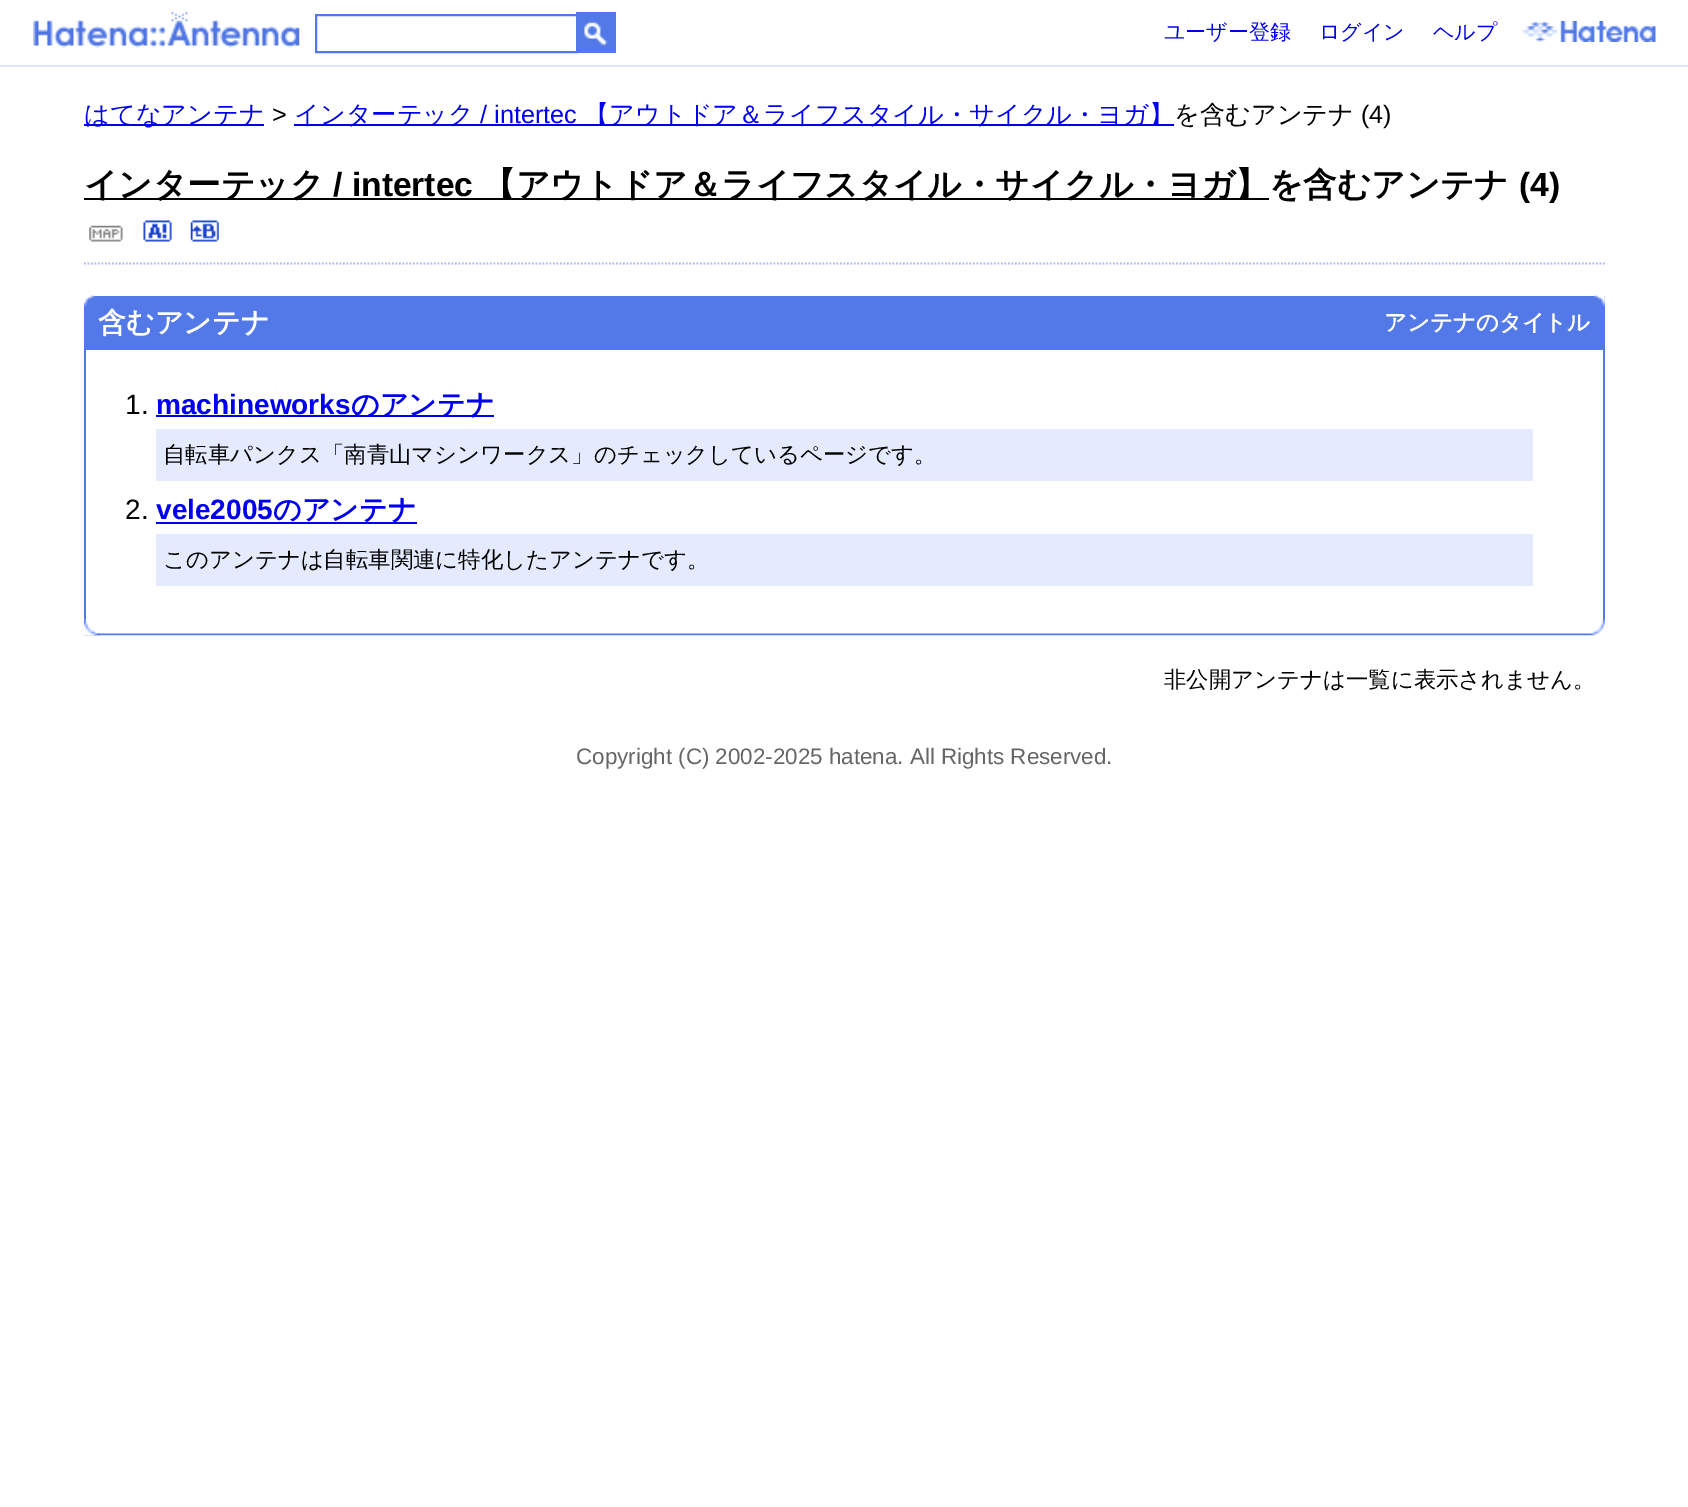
%!PS
<< /PageSize [1688 1507] >> setpagedevice
/rgb { 3 { 255 div 3 1 roll } repeat setrgbcolor } def
/font { [ exch dup neg 0 0 3 -1 roll 0 0 ] selectfont } def
/text { moveto show } def
/picture { 5 dict begin { /h /w /y /x /name } { exch def } forall
  gsave x y translate w h scale
  w h 8 [w 0 0 h 0 0] name (r) file false 3 colorimage grestore end } def
0 1507 translate 1 -1 scale
4 setmiterlimit
255 255 255 rgb
0 0 1688 1507 rectfill
224 233 250 rgb
0 65 1688 2 rectfill
(img_01.rgb) 33 11 267 37 picture
82 121 231 rgb
2 setlinewidth
316 15 261 37 rectstroke
576 12 40 41 rectfill
(img_02.rgb) 584 22 24 24 picture
(img_03.rgb) 1522 21 134 21 picture
0 0 238 rgb
84 124 180 2 rectfill
294 124 880 2 rectfill
173 178 255 rgb
1.8 setlinewidth
[1.75 1.75] 0 setdash
84 263.5 moveto 1521 0 rlineto stroke
0 0 0 rgb
84 198 1185 2 rectfill
(img_04.rgb) 89 225 34 17 picture
(img_05.rgb) 143 220 29 22 picture
(img_06.rgb) 190 220 29 22 picture
82 121 231 rgb
84 296 1521 54 rectfill
(img_07.rgb) 84 295 11 12 picture
(img_08.rgb) 1594 295 11 12 picture
1603 350 2 270 rectfill
84 350 2 270 rectfill
0 0 238 rgb
156 415 338 2 rectfill
229 235 255 rgb
156 429 1377 52 rectfill
0 0 238 rgb
156 522 261 2 rectfill
229 235 255 rgb
156 534 1377 52 rectfill
(img_09.rgb) 84 619 1521 17 picture
(img_10.rgb) 84 619 16 17 picture
/WenQuanYiZenHei-Medium 21 font
0 0 238 rgb
(ユーザー登録) 1164 39 text
(ログイン) 1319 39 text
(ヘルプ) 1433 39 text
/WenQuanYiZenHei-Medium 25.2 font
(はてなアンテナ) 84 123 text
/LiberationSans-Regular 25.2 font
0 0 0 rgb
(>) 272 123 text
/WenQuanYiZenHei-Medium 25.2 font
0 0 238 rgb
(インターテック) 294 123 text
/LiberationSans-Regular 25.2 font
(/ intertec) 480 123 text
/WenQuanYiZenHei-Medium 25.2 font
(【アウトドア＆ライフスタイル・サイクル・ヨガ】) 584 123 text
0 0 0 rgb
(を含むアンテナ) 1174 123 text
/LiberationSans-Regular 25.2 font
(\(4\)) 1361 123 text
/WenQuanYiZenHei-Bold 33.6 font
(インターテック) 84 196 text
/LiberationSans-Bold 33.6 font
(/ intertec) 333 196 text
/WenQuanYiZenHei-Bold 33.6 font
(【アウトドア＆ライフスタイル・サイクル・ヨガ】を含むアンテナ) 482 196 text
/LiberationSans-Bold 33.6 font
(\(4\)) 1519 196 text
/WenQuanYiZenHei-Bold 28 font
255 255 255 rgb
(含むアンテナ) 98 332 text
/WenQuanYiZenHei-Bold 22.4 font
(アンテナのタイトル) 1384 330 text
/LiberationSans-Regular 28 font
0 0 0 rgb
(1.) 125 414 text
/LiberationSans-Bold 28 font
0 0 238 rgb
(machineworks) 156 414 text
/WenQuanYiZenHei-Bold 28 font
(のアンテナ) 351 414 text
/WenQuanYiZenHei-Medium 22.4 font
0 0 0 rgb
(自転車パンクス「南青山マシンワークス」のチェックしているページです。) 163 462 text
/LiberationSans-Regular 28 font
(2.) 125 519 text
/LiberationSans-Bold 28 font
0 0 238 rgb
(vele2005) 156 519 text
/WenQuanYiZenHei-Bold 28 font
(のアンテナ) 273 519 text
/WenQuanYiZenHei-Medium 22.4 font
0 0 0 rgb
(このアンテナは自転車関連に特化したアンテナです。) 163 567 text
(非公開アンテナは一覧に表示されません。) 1164 687 text
/LiberationSans-Regular 22.4 font
102 102 102 rgb
(Copyright \(C\) 2002-2025 hatena. All Rights Reserved.) 576 764 text
showpage
